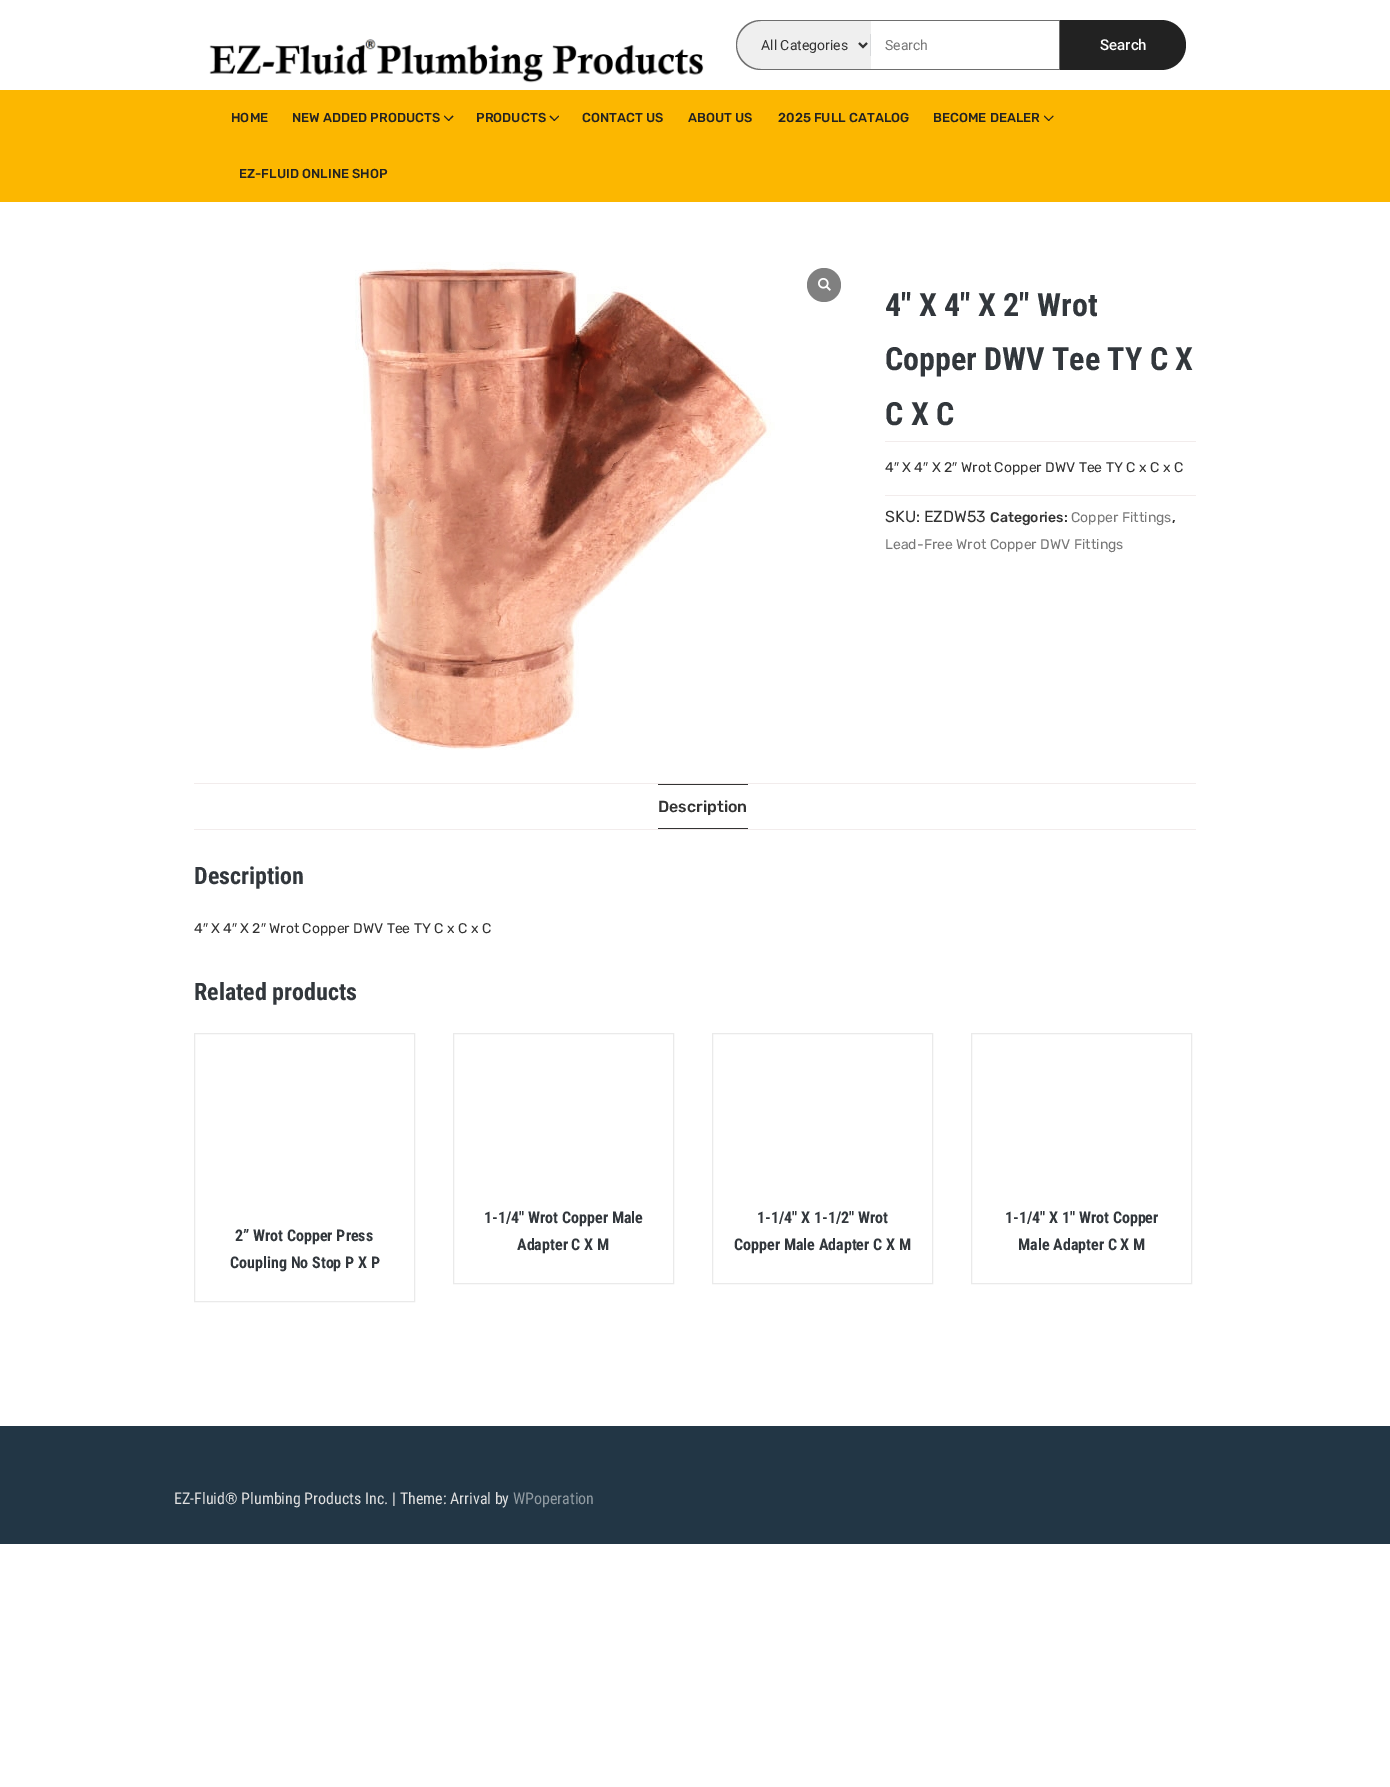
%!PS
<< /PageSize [1390 1787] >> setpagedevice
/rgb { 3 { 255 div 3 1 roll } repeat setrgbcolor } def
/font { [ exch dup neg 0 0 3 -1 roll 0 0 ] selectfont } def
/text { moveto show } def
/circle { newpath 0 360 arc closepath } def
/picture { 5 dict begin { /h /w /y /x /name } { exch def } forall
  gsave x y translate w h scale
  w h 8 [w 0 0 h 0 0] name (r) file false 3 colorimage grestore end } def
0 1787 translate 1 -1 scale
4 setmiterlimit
255 255 255 rgb
0 0 1390 1787 rectfill
(img_01.rgb) 209 39 495 44 picture
239 239 239 rgb
761 20 moveto 110 0 rlineto 0 50 rlineto -110 0 rlineto -14 0 -25 -11 -25 -25 rcurveto 0 -14 11 -25 25 -25 rcurveto closepath fill
110 110 110 rgb
761 20 moveto 110 0 rlineto 0 50 rlineto -110 0 rlineto -14 0 -25 -11 -25 -25 rcurveto 0 -14 11 -25 25 -25 rcurveto closepath 761 21 moveto 110 0 rlineto 0 48 rlineto -110 0 rlineto -13 0 -24 -11 -24 -24 rcurveto 0 -13 11 -24 24 -24 rcurveto closepath eofill
51 51 51 rgb
2 setlinewidth
859 43 moveto 4 4 rlineto 4 -4 rlineto stroke
216 218 220 rgb
870 34 1 22 rectfill
110 110 110 rgb
871 20 189 1 rectfill
1059 20 1 50 rectfill
871 69 189 1 rectfill
34 34 34 rgb
1060 20 moveto 101 0 rlineto 14 0 25 11 25 25 rcurveto 0 14 -11 25 -25 25 rcurveto -101 0 rlineto closepath fill
252 183 0 rgb
0 90 1390 112 rectfill
34 34 34 rgb
452.5 115.5 moveto 1 1 rlineto -5 4.5 rlineto -0.5 -0.5 rlineto closepath fill
444.5 115.5 moveto 5 5 rlineto -1 0.5 rlineto -4.5 -4.5 rlineto closepath fill
558.5 115.5 moveto 0.5 1 rlineto -4.5 4.5 rlineto -1 -0.5 rlineto closepath fill
550.5 115.5 moveto 4.5 5 rlineto -0.5 0.5 rlineto -5 -4.5 rlineto closepath fill
1053 115.5 moveto 0.5 1 rlineto -5 4.5 rlineto -0.5 -0.5 rlineto closepath fill
1044.5 115.5 moveto 5 5 rlineto -1 0.5 rlineto -4.5 -4.5 rlineto closepath fill
(img_02.rgb) 355 262 420 488 picture
128 128 128 rgb
824 285 17 circle fill
(img_03.rgb) 818 278 13 13 picture
242 236 236 rgb
885 441 311 1 rectfill
885 495 311 1 rectfill
194 783 1002 1 rectfill
194 829 1002 1 rectfill
51 51 51 rgb
658 784 90 1 rectfill
658 828 90 1 rectfill
234 234 234 rgb
1 setlinewidth
194.5 1033.5 220 268 rectstroke
453.5 1033.5 220 250 rectstroke
712.5 1033.5 220 250 rectstroke
971.5 1033.5 220 250 rectstroke
34 54 69 rgb
0 1426 1390 118 rectfill
/Roboto-Regular 14 font
51 51 51 rgb
(All Categories) 761 50 text
119 119 119 rgb
(Search) 885 50 text
/Roboto-Medium 15 font
255 255 255 rgb
(Search) 1100 50 text
/Rubik-Medium 13 font
34 34 34 rgb
(HOME) 231 122 text
(NEW ADDED PRODUCTS) 292 122 text
(PRODUCTS) 476 122 text
(CONTACT US) 582 122 text
(ABOUT US) 688 122 text
(2025 FULL CATALOG) 778 122 text
(BECOME DEALER) 933 122 text
(EZ-FLUID ONLINE SHOP) 239 178 text
/RobotoCondensed-Bold 32 font
50 55 60 rgb
(4″ X 4″ X 2″ Wrot) 885 316 text
(Copper DWV Tee TY C X) 885 370 text
(C X C) 885 425 text
/Rubik-Regular 14 font
51 51 51 rgb
(4) 885 472 text
/LiberationSans-Regular 14 font
(″) 894 472 text
/Rubik-Regular 14 font
(X 4) 902 472 text
/LiberationSans-Regular 14 font
(″) 923 472 text
/Rubik-Regular 14 font
(X 2) 932 472 text
/LiberationSans-Regular 14 font
(″) 952 472 text
/Rubik-Regular 14 font
(Wrot Copper DWV Tee TY C x C x C) 961 472 text
/Rubik-Regular 16 font
(SKU: EZDW53) 885 522 text
/Rubik-Medium 14 font
(Categories:) 990 522 text
/Rubik-Regular 14 font
119 119 119 rgb
(Copper Fittings) 1071 522 text
/Rubik-Medium 14 font
51 51 51 rgb
(,) 1172 522 text
/Rubik-Regular 14 font
119 119 119 rgb
(Lead-Free Wrot Copper DWV Fittings) 885 549 text
/Rubik-Medium 16 font
51 51 51 rgb
(Description) 658 812 text
/RobotoCondensed-Bold 24 font
50 55 60 rgb
(Description) 194 884 text
/Rubik-Regular 14 font
51 51 51 rgb
(4) 194 933 text
/LiberationSans-Regular 14 font
(″) 203 933 text
/Rubik-Regular 14 font
(X 4) 211 933 text
/LiberationSans-Regular 14 font
(″) 232 933 text
/Rubik-Regular 14 font
(X 2) 240 933 text
/LiberationSans-Regular 14 font
(″) 261 933 text
/Rubik-Regular 14 font
(Wrot Copper DWV Tee TY C x C x C) 269 933 text
/RobotoCondensed-Bold 24 font
50 55 60 rgb
(Related products) 194 1000 text
/RobotoCondensed-Bold 16 font
(2” Wrot Copper Press) 235 1241 text
(Coupling No Stop P X P) 230 1268 text
(1-1/4″ Wrot Copper Male) 484 1223 text
(Adapter C X M) 517 1250 text
(1-1/4″ X 1-1/2″ Wrot) 757 1223 text
(Copper Male Adapter C X M) 734 1250 text
(1-1/4″ X 1″ Wrot Copper) 1005 1223 text
(Male Adapter C X M) 1018 1250 text
/RobotoCondensed-Regular 16 font
224 224 224 rgb
(EZ-Fluid® Plumbing Products Inc. | Theme: Arrival by) 174 1504 text
145 155 162 rgb
(WPoperation) 513 1504 text
showpage
